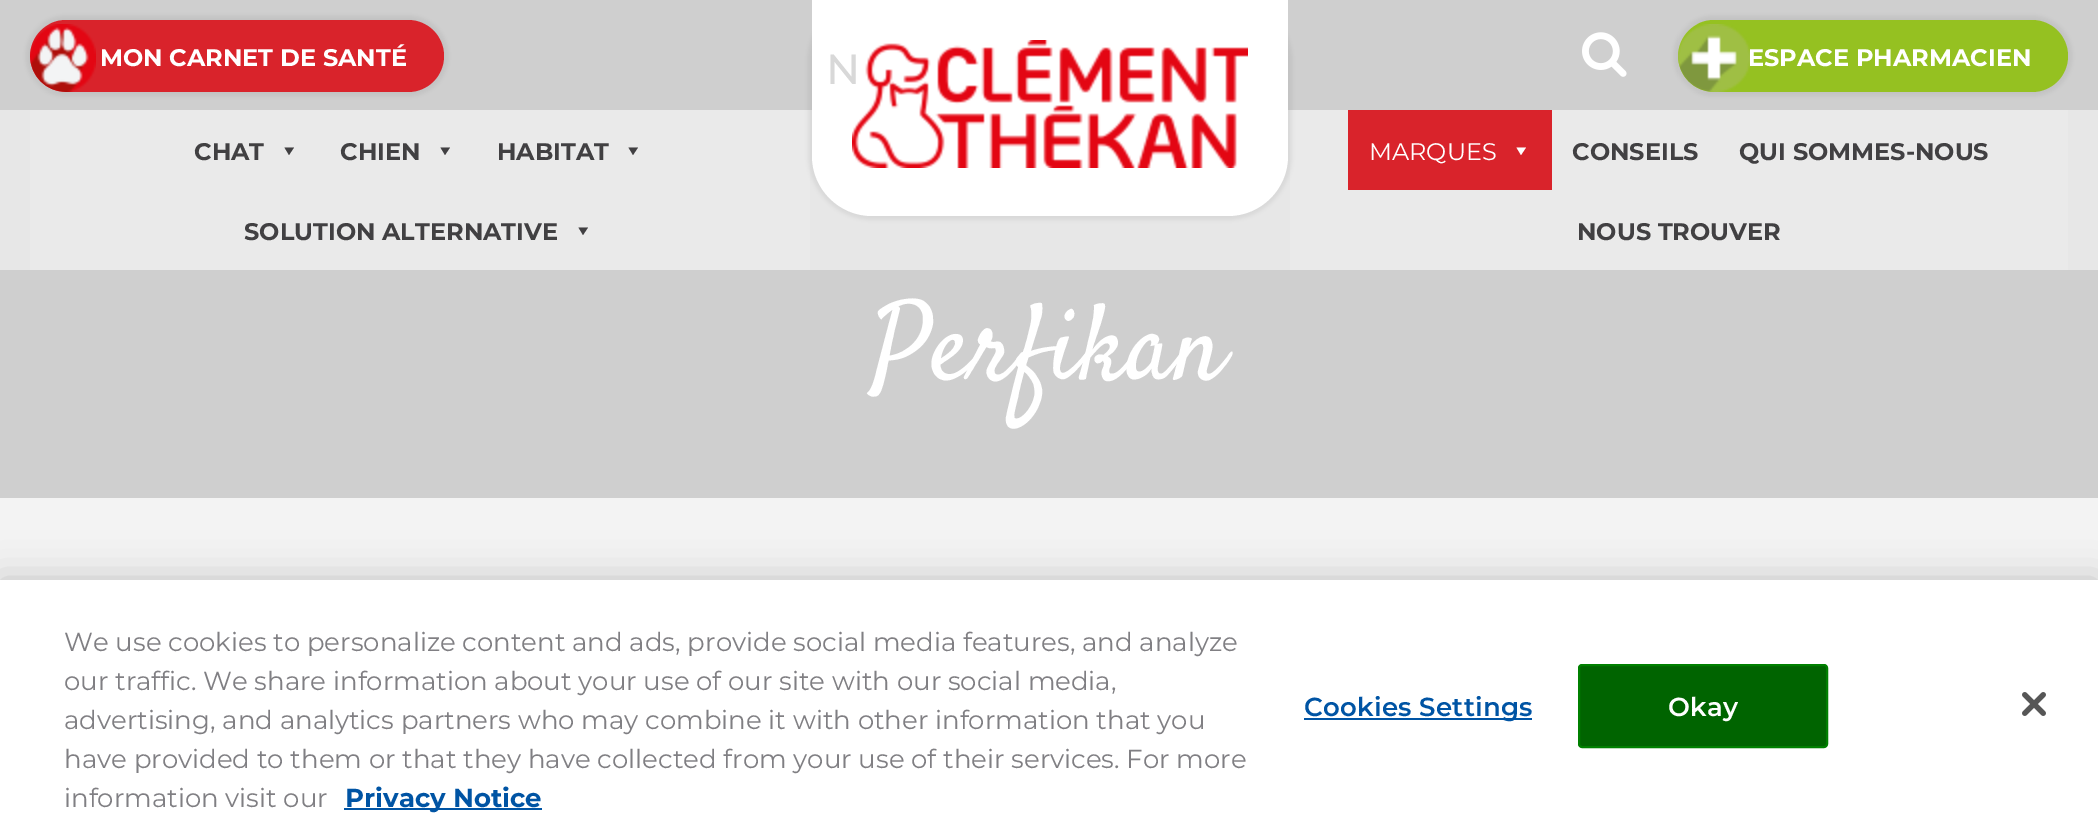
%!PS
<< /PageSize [2098 835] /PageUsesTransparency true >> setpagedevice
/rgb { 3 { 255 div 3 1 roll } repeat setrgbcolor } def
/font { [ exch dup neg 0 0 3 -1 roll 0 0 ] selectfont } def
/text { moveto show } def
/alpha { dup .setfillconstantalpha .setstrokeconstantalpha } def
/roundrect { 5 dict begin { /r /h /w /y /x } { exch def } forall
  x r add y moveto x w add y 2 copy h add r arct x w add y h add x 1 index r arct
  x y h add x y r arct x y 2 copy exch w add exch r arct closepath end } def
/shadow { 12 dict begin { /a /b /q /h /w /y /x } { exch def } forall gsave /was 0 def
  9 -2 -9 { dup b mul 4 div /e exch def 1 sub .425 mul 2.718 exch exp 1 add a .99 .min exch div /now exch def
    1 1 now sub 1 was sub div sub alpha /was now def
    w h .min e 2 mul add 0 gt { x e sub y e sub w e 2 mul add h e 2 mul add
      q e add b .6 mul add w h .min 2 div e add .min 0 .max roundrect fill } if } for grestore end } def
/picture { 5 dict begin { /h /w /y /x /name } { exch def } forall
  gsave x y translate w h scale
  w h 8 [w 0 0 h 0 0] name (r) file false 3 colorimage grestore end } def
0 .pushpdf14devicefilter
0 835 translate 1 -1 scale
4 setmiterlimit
207 207 207 rgb
0 0 2098 835 rectfill
0 0 0 rgb
26 16 422 80 40 2 0.05 shadow
217 35 43 rgb
30 20 414 72 36 roundrect fill
(img_01.rgb) 30 24 66 68 picture
231 231 231 rgb
0 110 2098 160 rectfill
234 234 234 rgb
30 110 780 160 rectfill
1290 110 778 160 rectfill
0 0 0 rgb
808 -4 484 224 64 2 0.05 shadow
255 255 255 rgb
812 0 moveto 476 0 rlineto 0 156 rlineto 0 33 -27 60 -60 60 rcurveto -356 0 rlineto -33 0 -60 -27 -60 -60 rcurveto closepath fill
(img_02.rgb) 852 40 396 128 picture
(img_03.rgb) 1582 32 45 45 picture
0 0 0 rgb
1674 16 398 80 40 2 0.05 shadow
149 193 33 rgb
1678 20 390 72 36 roundrect fill
(img_04.rgb) 1678 24 72 68 picture
65 64 66 rgb
294 147.5 moveto -5 7.5 rlineto -4.5 -7.5 rlineto closepath fill
450 147.5 moveto -5 7.5 rlineto -4.5 -7.5 rlineto closepath fill
638 147.5 moveto -5 7.5 rlineto -4.5 -7.5 rlineto closepath fill
588 227.5 moveto -5 7.5 rlineto -4.5 -7.5 rlineto closepath fill
217 35 43 rgb
1348 110 204 80 rectfill
255 255 255 rgb
1526 147.5 moveto -5 7.5 rlineto -4.5 -7.5 rlineto closepath fill
243 243 243 rgb
0 498 2098 82 rectfill
0 0 0 rgb
0 580 2098 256 0 18 0.2 shadow
255 255 255 rgb
0 580 2098 255 rectfill
0 84 164 rgb
344 808 198 2 rectfill
1304 718 228 2 rectfill
0 100 0 rgb
1579 665 248 82 3 roundrect gsave fill grestore
0 128 0 rgb
2 setlinewidth
stroke
(img_05.rgb) 2022 692 24 24 picture
/Montserrat-Bold 24 font
255 255 255 rgb
(MON CARNET DE SANTÉ) 100 66 text
(ESPACE PHARMACIEN) 1748 66 text
65 64 66 rgb
(CHAT) 194 160 text
(CHIEN) 340 160 text
(HABITAT) 497 160 text
(SOLUTION ALTERNATIVE) 244 240 text
/Montserrat-Regular 24 font
255 255 255 rgb
(MARQUES) 1369 160 text
/Montserrat-Bold 24 font
65 64 66 rgb
(CONSEILS) 1572 160 text
(QUI SOMMES-NOUS) 1739 160 text
(NOUS TROUVER) 1577 240 text
/Montserrat-Medium 42 font
216 216 216 rgb
(N) 826 84 text
/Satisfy-Regular 108 font
255 255 255 rgb
(Perfikan) 872 378 text
/Montserrat-Regular 26 font
128 127 131 rgb
(We use cookies to personalize content and ads, provide social media features, and analyze) 64 651 text
(our traffic. We share information about your use of our site with our social media,) 64 690 text
(advertising, and analytics partners who may combine it with other information that you) 64 729 text
(have provided to them or that they have collected from your use of their services. For more) 64 768 text
(information visit our) 64 807 text
/Montserrat-Bold 26 font
0 84 164 rgb
(Privacy Notice) 345 807 text
/Montserrat-SemiBold 26 font
1304 716 moveto 0.25 0 (Cookies Settings) ashow
255 255 255 rgb
1668 716 moveto 0.25 0 (Okay) ashow
.poppdf14devicefilter showpage
